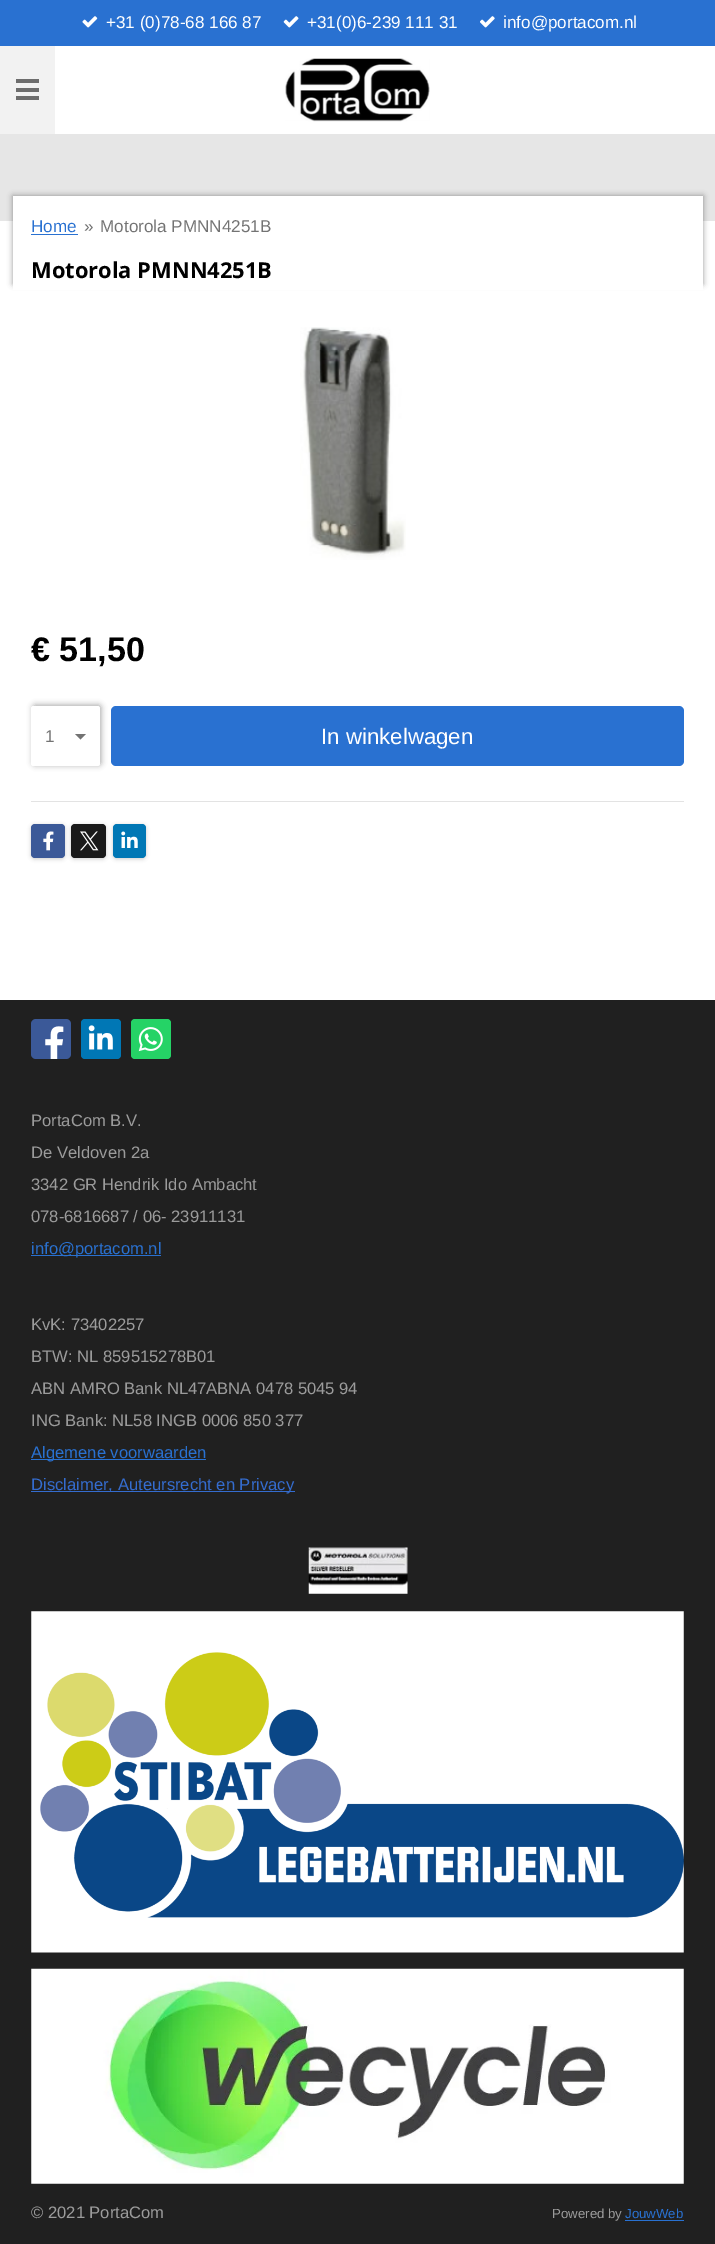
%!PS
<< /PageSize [715 2244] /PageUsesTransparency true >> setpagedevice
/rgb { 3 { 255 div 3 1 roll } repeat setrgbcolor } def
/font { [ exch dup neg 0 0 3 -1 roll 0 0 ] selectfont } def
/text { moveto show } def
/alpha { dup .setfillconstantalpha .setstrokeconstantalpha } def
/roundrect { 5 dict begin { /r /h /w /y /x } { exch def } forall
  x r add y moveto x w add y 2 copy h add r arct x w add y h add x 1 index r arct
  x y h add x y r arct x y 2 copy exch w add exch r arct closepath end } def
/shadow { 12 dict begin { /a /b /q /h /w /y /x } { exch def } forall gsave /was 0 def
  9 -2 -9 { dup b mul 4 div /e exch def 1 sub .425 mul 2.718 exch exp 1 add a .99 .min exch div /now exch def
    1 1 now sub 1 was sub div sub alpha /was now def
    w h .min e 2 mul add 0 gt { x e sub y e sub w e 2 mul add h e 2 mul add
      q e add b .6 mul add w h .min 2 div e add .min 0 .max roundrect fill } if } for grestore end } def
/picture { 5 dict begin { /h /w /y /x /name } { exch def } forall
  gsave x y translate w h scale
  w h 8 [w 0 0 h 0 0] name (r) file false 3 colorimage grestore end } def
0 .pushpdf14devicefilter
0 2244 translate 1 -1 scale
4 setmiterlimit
255 255 255 rgb
0 0 715 2244 rectfill
41 113 209 rgb
0 0 715 46 rectfill
(img_01.rgb) 82 16 16 12 picture
(img_02.rgb) 283 16 16 12 picture
(img_03.rgb) 480 16 15 12 picture
242 242 242 rgb
0 46 55 88 rectfill
109 109 109 rgb
16 88 23 4 rectfill
16 79 23 4 rectfill
16 96 23 4 rectfill
(img_04.rgb) 285 58 145 64 picture
230 230 230 rgb
0 134 715 87 rectfill
0 0 0 rgb
13 196 690 88 0 3 0.4 shadow
255 255 255 rgb
13 196 690 94 rectfill
41 113 209 rgb
31 234 47 1 rectfill
(img_05.rgb) 300 327 106 233 picture
0 0 0 rgb
33 705 68 60 2.5 3 0.35 shadow
255 255 255 rgb
31 706 69 60 2.5 roundrect fill
115 115 115 rgb
80.5 739.5 moveto -5.5 -5.5 rlineto 11 0 rlineto closepath fill
41 113 209 rgb
111 706 573 60 5 roundrect fill
227 227 227 rgb
31 801 653 1 rectfill
0 0 0 rgb
31 825 34 34 4 2 0.2 shadow
59 89 152 rgb
31 824 34 34 4 roundrect fill
(img_06.rgb) 43 831 11 20 picture
0 0 0 rgb
71 825 35 34 4 2 0.2 shadow
26 26 26 rgb
71 824 35 34 4 roundrect fill
(img_07.rgb) 80 831 19 20 picture
0 0 0 rgb
113 825 33 34 4 2 0.2 shadow
0 119 181 rgb
113 824 33 34 4 roundrect fill
(img_08.rgb) 121 831 17 17 picture
32 32 32 rgb
0 1000 715 1244 rectfill
59 89 152 rgb
31 1019 40 40 5 roundrect fill
(img_09.rgb) 45 1026 19 33 picture
0 119 181 rgb
81 1019 40 40 4 roundrect fill
(img_10.rgb) 88 1025 25 25 picture
37 211 102 rgb
131 1019 40 40 4 roundrect fill
(img_11.rgb) 138 1027 25 25 picture
41 113 209 rgb
31 1255 130 1 rectfill
31 1459 175 1 rectfill
52 108 207 rgb
31 1491 264 1 rectfill
(img_12.rgb) 308 1547 100 47 picture
(img_13.rgb) 31 1611 653 342 picture
(img_14.rgb) 31 1968 653 216 picture
41 113 209 rgb
625 2220 59 1 rectfill
/LiberationSans-Regular 17.1 font
255 255 255 rgb
(+31 \(0\)78-68 166 87) 106 28 text
(+31\(0\)6-239 111 31) 307 28 text
(info@portacom.nl) 503 28 text
41 113 209 rgb
(Home) 31 232 text
115 115 115 rgb
(») 84 232 text
(Motorola PMNN4251B) 100 232 text
/OpenSans-Bold 21.9 font
0 0 0 rgb
(Motorola PMNN4251B) 31 278 text
/LiberationSans-Bold 34 font
(€ 51,50) 31 661 text
/LiberationSans-Regular 17.1 font
115 115 115 rgb
(1) 45 742 text
/LiberationSans-Regular 22.25 font
255 255 255 rgb
(In winkelwagen) 321 744 text
/LiberationSans-Regular 16.6 font
155 155 155 rgb
(PortaCom B.V.) 31 1126 text
(De Veldoven 2a) 31 1158 text
(3342 GR Hendrik Ido Ambacht) 31 1190 text
(078-6816687 / 06- 23911131) 31 1222 text
41 113 209 rgb
(info@portacom.nl) 31 1254 text
155 155 155 rgb
(KvK: 73402257) 31 1330 text
(BTW: NL 859515278B01) 31 1362 text
(ABN AMRO Bank NL47ABNA 0478 5045 94) 31 1394 text
(ING Bank: NL58 INGB 0006 850 377) 31 1426 text
41 113 209 rgb
(Algemene voorwaarden) 31 1458 text
52 108 207 rgb
(Disclaimer, Auteursrecht en Privacy) 31 1490 text
155 155 155 rgb
(© 2021 PortaCom) 31 2218 text
/LiberationSans-Regular 13.25 font
(Powered by) 552 2218 text
41 113 209 rgb
(JouwWeb) 625 2218 text
.poppdf14devicefilter showpage
